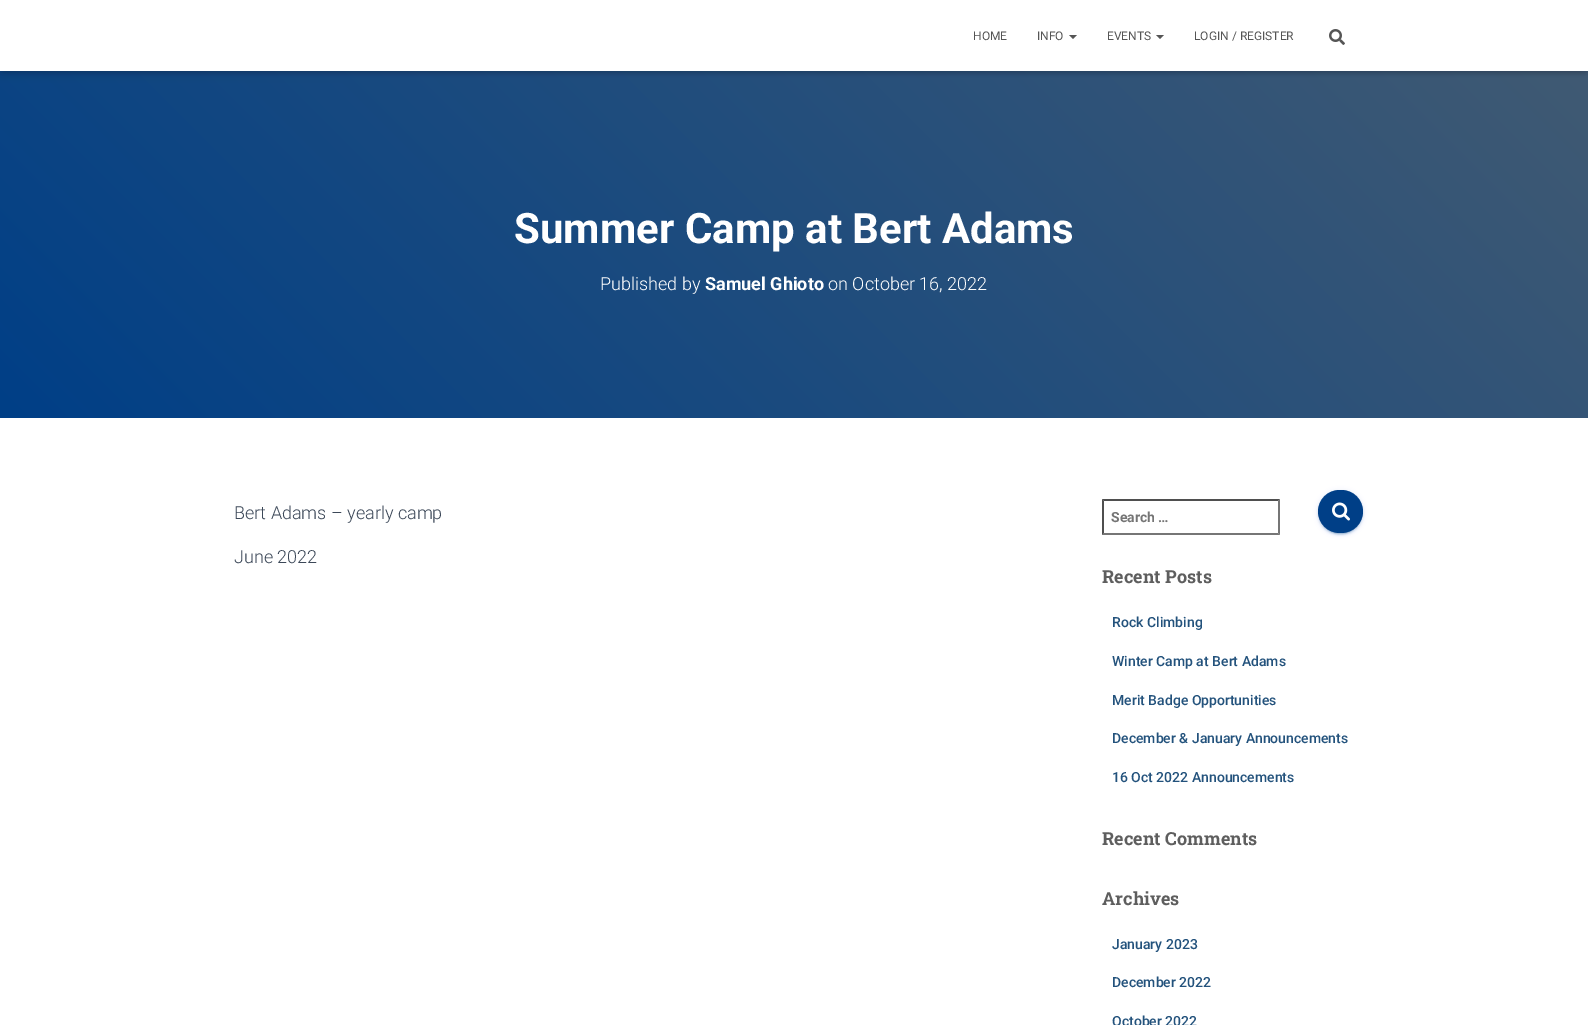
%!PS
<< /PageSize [1588 1025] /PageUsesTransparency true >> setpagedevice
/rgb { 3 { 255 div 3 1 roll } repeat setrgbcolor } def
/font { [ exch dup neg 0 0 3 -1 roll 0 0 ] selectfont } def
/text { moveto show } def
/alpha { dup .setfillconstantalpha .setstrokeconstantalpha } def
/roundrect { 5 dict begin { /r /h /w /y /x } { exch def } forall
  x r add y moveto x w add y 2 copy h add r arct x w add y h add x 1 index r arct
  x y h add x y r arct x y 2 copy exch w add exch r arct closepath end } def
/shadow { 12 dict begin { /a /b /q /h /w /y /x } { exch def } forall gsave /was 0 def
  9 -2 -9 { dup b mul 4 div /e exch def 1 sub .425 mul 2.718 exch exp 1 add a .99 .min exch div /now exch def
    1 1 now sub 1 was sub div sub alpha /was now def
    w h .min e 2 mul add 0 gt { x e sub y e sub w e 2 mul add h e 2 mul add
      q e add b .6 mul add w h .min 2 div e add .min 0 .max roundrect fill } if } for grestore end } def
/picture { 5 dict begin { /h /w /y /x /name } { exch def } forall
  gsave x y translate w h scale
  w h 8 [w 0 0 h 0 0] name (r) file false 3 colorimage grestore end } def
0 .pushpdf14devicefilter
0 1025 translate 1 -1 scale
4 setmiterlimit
255 255 255 rgb
0 0 1588 1025 rectfill
gsave 0 71 moveto 1588 0 rlineto 0 347 rlineto -1588 0 rlineto closepath clip newpath
<< /ShadingType 2 /ColorSpace /DeviceRGB /Coords [293 711 1296 -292] /Extend [true true] /Function << /FunctionType 2 /Domain [0 1] /C0 [0 0.247 0.529] /C1 [0.259 0.357 0.447] /N 1 >> >> shfill grestore
0 0 0 rgb
2 6 1584 67 0 2.5 0.1 shadow
0 1 1588 71 0 5 0.12 shadow
6 7 1576 59 0 5 0.42 shadow
255 255 255 rgb
0 0 1588 71 rectfill
85 85 85 rgb
1069 35 moveto 8 0 rlineto -4 4 rlineto closepath fill
1156 35 moveto 8 0 rlineto -4 4 rlineto closepath fill
(img_01.rgb) 1329 29 16 16 picture
79 79 79 rgb
1102 499 moveto 178 0 rlineto -2 2 rlineto -174 0 rlineto closepath fill
118 118 118 rgb
1280 499 moveto 0 36 rlineto -2 -2 rlineto 0 -32 rlineto closepath fill
1280 535 moveto -178 0 rlineto 2 -2 rlineto 174 0 rlineto closepath fill
79 79 79 rgb
1102 535 moveto 0 -36 rlineto 2 2 rlineto 0 32 rlineto closepath fill
0 63 135 rgb
1318 491 45 43 21.5 2.5 0.12 shadow
1320 495 41 39 19.5 0.5 0.2 shadow
1318 492 45 43 21.5 1 0.14 shadow
1318 490 45 43 21.5 roundrect fill
(img_02.rgb) 1332 502 18 19 picture
/Roboto-Regular 12 font
85 85 85 rgb
(HOME) 973 40 text
(INFO) 1037 40 text
(EVENTS) 1107 40 text
(LOGIN / REGISTER) 1194 40 text
/Roboto-Bold 42 font
255 255 255 rgb
(Summer Camp at Bert Adams) 514 243 text
/Roboto-Light 18 font
(Published by) 600 290 text
/Roboto-Bold 18 font
(Samuel Ghioto) 705 290 text
/Roboto-Light 18 font
(on October 16, 2022) 828 290 text
60 72 88 rgb
(Bert Adams – yearly camp) 234 519 text
(June 2022) 234 563 text
/Roboto-Bold 14 font
117 117 117 rgb
(Search …) 1111 522 text
/RobotoSlab-Bold 18 font
94 94 94 rgb
(Recent Posts) 1102 583 text
/Roboto-Medium 14 font
35 82 124 rgb
(Rock Climbing) 1112 627 text
(Winter Camp at Bert Adams) 1112 666 text
(Merit Badge Opportunities) 1112 705 text
(December & January Announcements) 1112 743 text
(16 Oct 2022 Announcements) 1112 782 text
/RobotoSlab-Bold 18 font
94 94 94 rgb
(Recent Comments) 1102 845 text
(Archives) 1102 905 text
/Roboto-Medium 14 font
35 82 124 rgb
(January 2023) 1112 949 text
(December 2022) 1112 987 text
(October 2022) 1112 1026 text
.poppdf14devicefilter showpage
